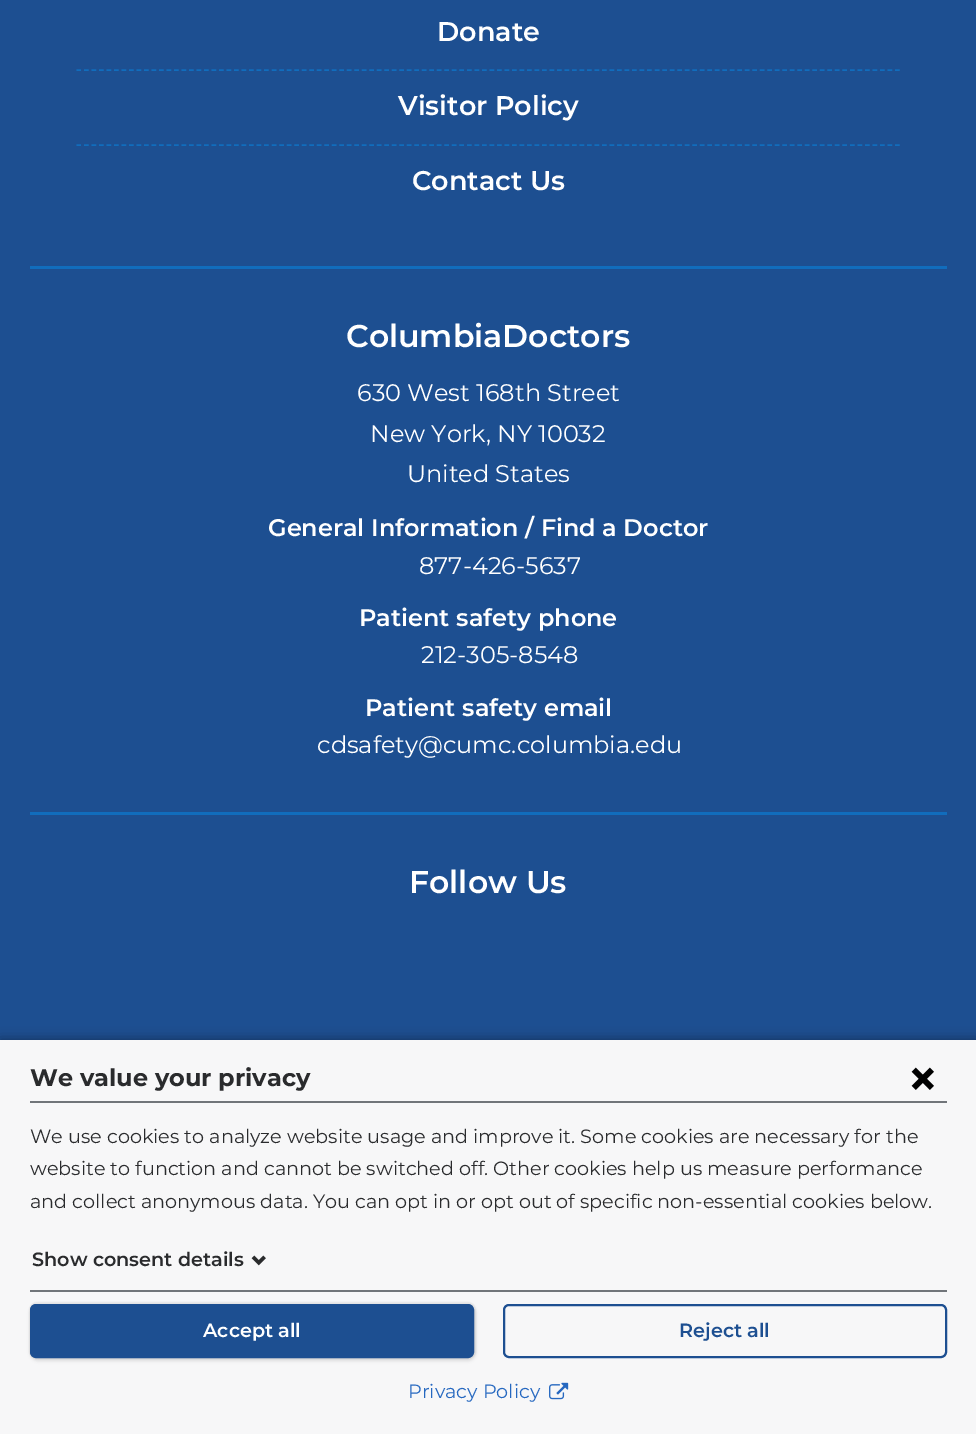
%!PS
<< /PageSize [976 1434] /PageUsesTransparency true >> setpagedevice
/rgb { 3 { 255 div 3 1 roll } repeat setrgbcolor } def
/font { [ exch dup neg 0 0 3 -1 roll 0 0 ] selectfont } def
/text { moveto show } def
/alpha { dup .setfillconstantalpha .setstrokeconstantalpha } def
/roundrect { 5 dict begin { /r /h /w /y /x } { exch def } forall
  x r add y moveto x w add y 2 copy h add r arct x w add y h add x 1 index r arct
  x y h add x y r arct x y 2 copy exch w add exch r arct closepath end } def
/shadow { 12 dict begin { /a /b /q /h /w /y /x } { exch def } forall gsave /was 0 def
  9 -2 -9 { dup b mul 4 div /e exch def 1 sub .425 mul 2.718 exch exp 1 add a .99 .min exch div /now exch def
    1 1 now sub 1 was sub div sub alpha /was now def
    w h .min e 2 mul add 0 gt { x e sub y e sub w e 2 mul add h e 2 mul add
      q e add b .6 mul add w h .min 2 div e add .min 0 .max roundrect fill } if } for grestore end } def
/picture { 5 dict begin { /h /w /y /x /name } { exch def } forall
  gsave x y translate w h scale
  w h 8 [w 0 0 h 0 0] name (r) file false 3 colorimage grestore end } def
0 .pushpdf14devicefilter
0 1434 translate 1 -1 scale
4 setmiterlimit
29 79 145 rgb
0 0 976 1434 rectfill
17 109 189 rgb
30 266 917 3 rectfill
1.5 setlinewidth
[4.5 3.01] 0 setdash
76.5 70 moveto 823.5 0 rlineto stroke
76.5 145 moveto 823.5 0 rlineto stroke
30 812 917 3 rectfill
0 0 0 rgb
0 1040 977 394 0 6 0.4 shadow
247 247 248 rgb
0 1040 976 394 rectfill
113 117 122 rgb
30 1101 917 2 rectfill
(img_01.rgb) 911 1067 23 23 picture
(img_02.rgb) 251 1255 15 11 picture
30 1290 917 2 rectfill
0 0 0 rgb
29 1302 447 57 8 0.5 0.06 shadow
30 1305 446 56 8 1.5 0.1 shadow
29 79 145 rgb
31 1305 442 52 5 roundrect gsave fill grestore
2 setlinewidth
[] 0 setdash
stroke
504 1305 442 52 5 roundrect stroke
(img_03.rgb) 549 1382 20 18 picture
/Montserrat-SemiBold 27 font
255 255 255 rgb
(Donate) 437 41 text
(Visitor Policy) 398 115 text
(Contact Us) 412 190 text
/Montserrat-SemiBold 31.5 font
(ColumbiaDoctors) 346 347 text
/Montserrat-Regular 24 font
(630 West 168th Street) 357 401 text
(New York, NY 10032) 370 442 text
(United States) 407 482 text
/Montserrat-SemiBold 24 font
(General Information / Find a Doctor) 268 536 text
/Montserrat-Regular 24 font
(877-426-5637) 419 574 text
/Montserrat-SemiBold 24 font
(Patient safety phone) 359 626 text
/Montserrat-Regular 24 font
(212-305-8548) 421 663 text
/Montserrat-SemiBold 24 font
(Patient safety email) 365 716 text
/Montserrat-Regular 24 font
(cdsafety@cumc.columbia.edu) 317 753 text
/Montserrat-SemiBold 31.5 font
(Follow Us) 409 893 text
/Montserrat-Bold 24 font
42 43 45 rgb
(We value your privacy) 30 1086 text
/Montserrat-Regular 19.2 font
(We use cookies to analyze website usage and improve it. Some cookies are necessary for the) 30 1143 text
(website to function and cannot be switched off. Other cookies help us measure performance) 30 1175 text
(and collect anonymous data. You can opt in or opt out of specific non-essential cookies below.) 30 1208 text
/Montserrat-SemiBold 19.2 font
(Show consent details) 32 1266 text
255 255 255 rgb
(Accept all) 203 1337 text
29 79 145 rgb
(Reject all) 679 1337 text
/Montserrat-Regular 19.2 font
38 104 192 rgb
(Privacy Policy) 408 1398 text
.poppdf14devicefilter showpage
